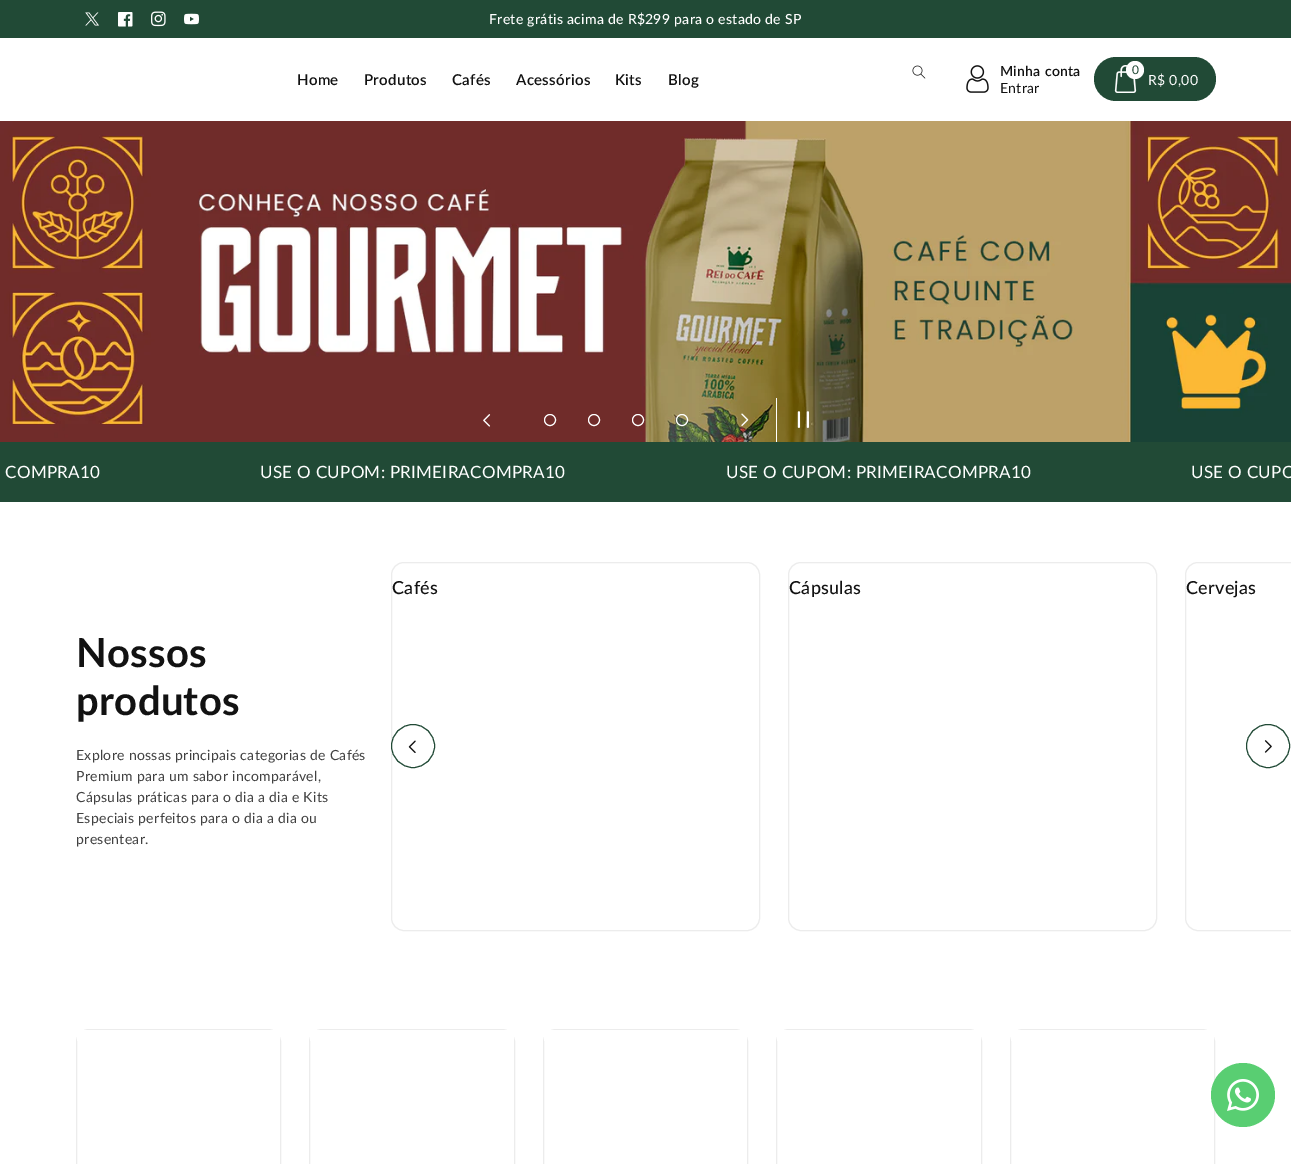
%!PS
<< /PageSize [1291 1164] >> setpagedevice
/rgb { 3 { 255 div 3 1 roll } repeat setrgbcolor } def
/font { [ exch dup neg 0 0 3 -1 roll 0 0 ] selectfont } def
/circle { newpath 0 360 arc closepath } def
/roundrect { 5 dict begin { /r /h /w /y /x } { exch def } forall
  x r add y moveto x w add y 2 copy h add r arct x w add y h add x 1 index r arct
  x y h add x y r arct x y 2 copy exch w add exch r arct closepath end } def
/picture { 5 dict begin { /h /w /y /x /name } { exch def } forall
  gsave x y translate w h scale
  w h 8 [w 0 0 h 0 0] name (r) file false 3 colorimage grestore end } def
0 1164 translate 1 -1 scale
4 setmiterlimit
255 255 255 rgb
0 0 1291 1164 rectfill
33 74 54 rgb
0 0 1291 38 rectfill
(img_01.rgb) 85 12 14 14 picture
(img_02.rgb) 118 12 15 15 picture
(img_03.rgb) 151 11 15 16 picture
(img_04.rgb) 184 13 15 12 picture
(img_05.rgb) 912 65 14 14 picture
(img_06.rgb) 966 65 23 28 picture
1094 57 122 44 22 roundrect fill
(img_07.rgb) 1114 65 23 28 picture
255 255 255 rgb
1135 70 9 circle fill
(img_08.rgb) 0 121 1291 321 picture
(img_09.rgb) 483 414 8 13 picture
550 420 5.5 circle stroke
594 420 5.5 circle stroke
638 420 5.5 circle stroke
682 420 5.5 circle stroke
(img_10.rgb) 741 413 8 13 picture
776 398 1 44 rectfill
(img_11.rgb) 797 411 12 17 picture
33 74 54 rgb
0 442 1291 60 rectfill
236 236 236 rgb
391.5 562.5 368 368 12.5 roundrect stroke
788.5 562.5 368 368 12.5 roundrect stroke
1185.5 562.5 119 368 12.5 roundrect stroke
255 255 255 rgb
413 746 22 circle fill
(img_12.rgb) 408 740 8 13 picture
33 74 54 rgb
413 746 21.5 circle stroke
(img_13.rgb) 1264 740 8 13 picture
1268 746 21.5 circle stroke
236 236 236 rgb
76.5 1029.5 204 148 12.5 roundrect stroke
255 255 255 rgb
77 1030 203 11 rectfill
236 236 236 rgb
309.5 1029.5 205 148 12.5 roundrect stroke
255 255 255 rgb
310 1030 204 11 rectfill
236 236 236 rgb
543.5 1029.5 204 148 12.5 roundrect stroke
255 255 255 rgb
544 1030 203 11 rectfill
236 236 236 rgb
776.5 1029.5 205 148 12.5 roundrect stroke
255 255 255 rgb
777 1030 204 11 rectfill
236 236 236 rgb
1010.5 1029.5 204 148 12.5 roundrect stroke
255 255 255 rgb
1011 1030 203 11 rectfill
89 206 114 rgb
1243 1095 32 circle fill
(img_14.rgb) 1227 1079 32 32 picture
/Lato-Medium 14 font
255 255 255 rgb
489 24 moveto 0.3 0 (Frete grátis acima de R$299 para o estado de SP) ashow
/Lato-SemiBold 15 font
18 18 18 rgb
297 85 moveto 0.3 0 (Home) ashow
364 85 moveto 0.3 0 (Produtos) ashow
452 85 moveto 0.3 0 (Cafés) ashow
516 85 moveto 0.3 0 (Acessórios) ashow
615 85 moveto 0.3 0 (Kits) ashow
668 85 moveto 0.3 0 (Blog) ashow
/Lato-SemiBold 14 font
1000 76 moveto 0.3 0 (Minha conta) ashow
/Lato-Regular 14 font
1000 93 moveto 0.3 0 (Entrar) ashow
/Lato-Regular 12 font
33 74 54 rgb
1132 74 moveto 0.3 0 (0) ashow
/Lato-Regular 14 font
255 255 255 rgb
1148 85 moveto 0.3 0 (R$ 0,00) ashow
/Lato-Regular 17 font
5 478 moveto 0.3 0 (COMPRA10) ashow
260 478 moveto 0.3 0 (USE O CUPOM: PRIMEIRACOMPRA10) ashow
726 478 moveto 0.3 0 (USE O CUPOM: PRIMEIRACOMPRA10) ashow
1191 478 moveto 0.3 0 (USE O CUPO) ashow
/Lato-Medium 18 font
18 18 18 rgb
392 594 moveto 0.3 0 (Cafés) ashow
789 594 moveto 0.3 0 (Cápsulas) ashow
1186 594 moveto 0.3 0 (Cervejas) ashow
/Lato-Bold 40 font
76 667 moveto 0.3 0 (Nossos) ashow
76 715 moveto 0.3 0 (produtos) ashow
/Lato-Regular 14 font
65 65 65 rgb
76 760 moveto 0.3 0 (Explore nossas principais categorias de Cafés) ashow
76 781 moveto 0.3 0 (Premium para um sabor incomparável,) ashow
76 802 moveto 0.3 0 (Cápsulas práticas para o dia a dia e Kits) ashow
76 823 moveto 0.3 0 (Especiais perfeitos para o dia a dia ou) ashow
76 844 moveto 0.3 0 (presentear.) ashow
showpage
